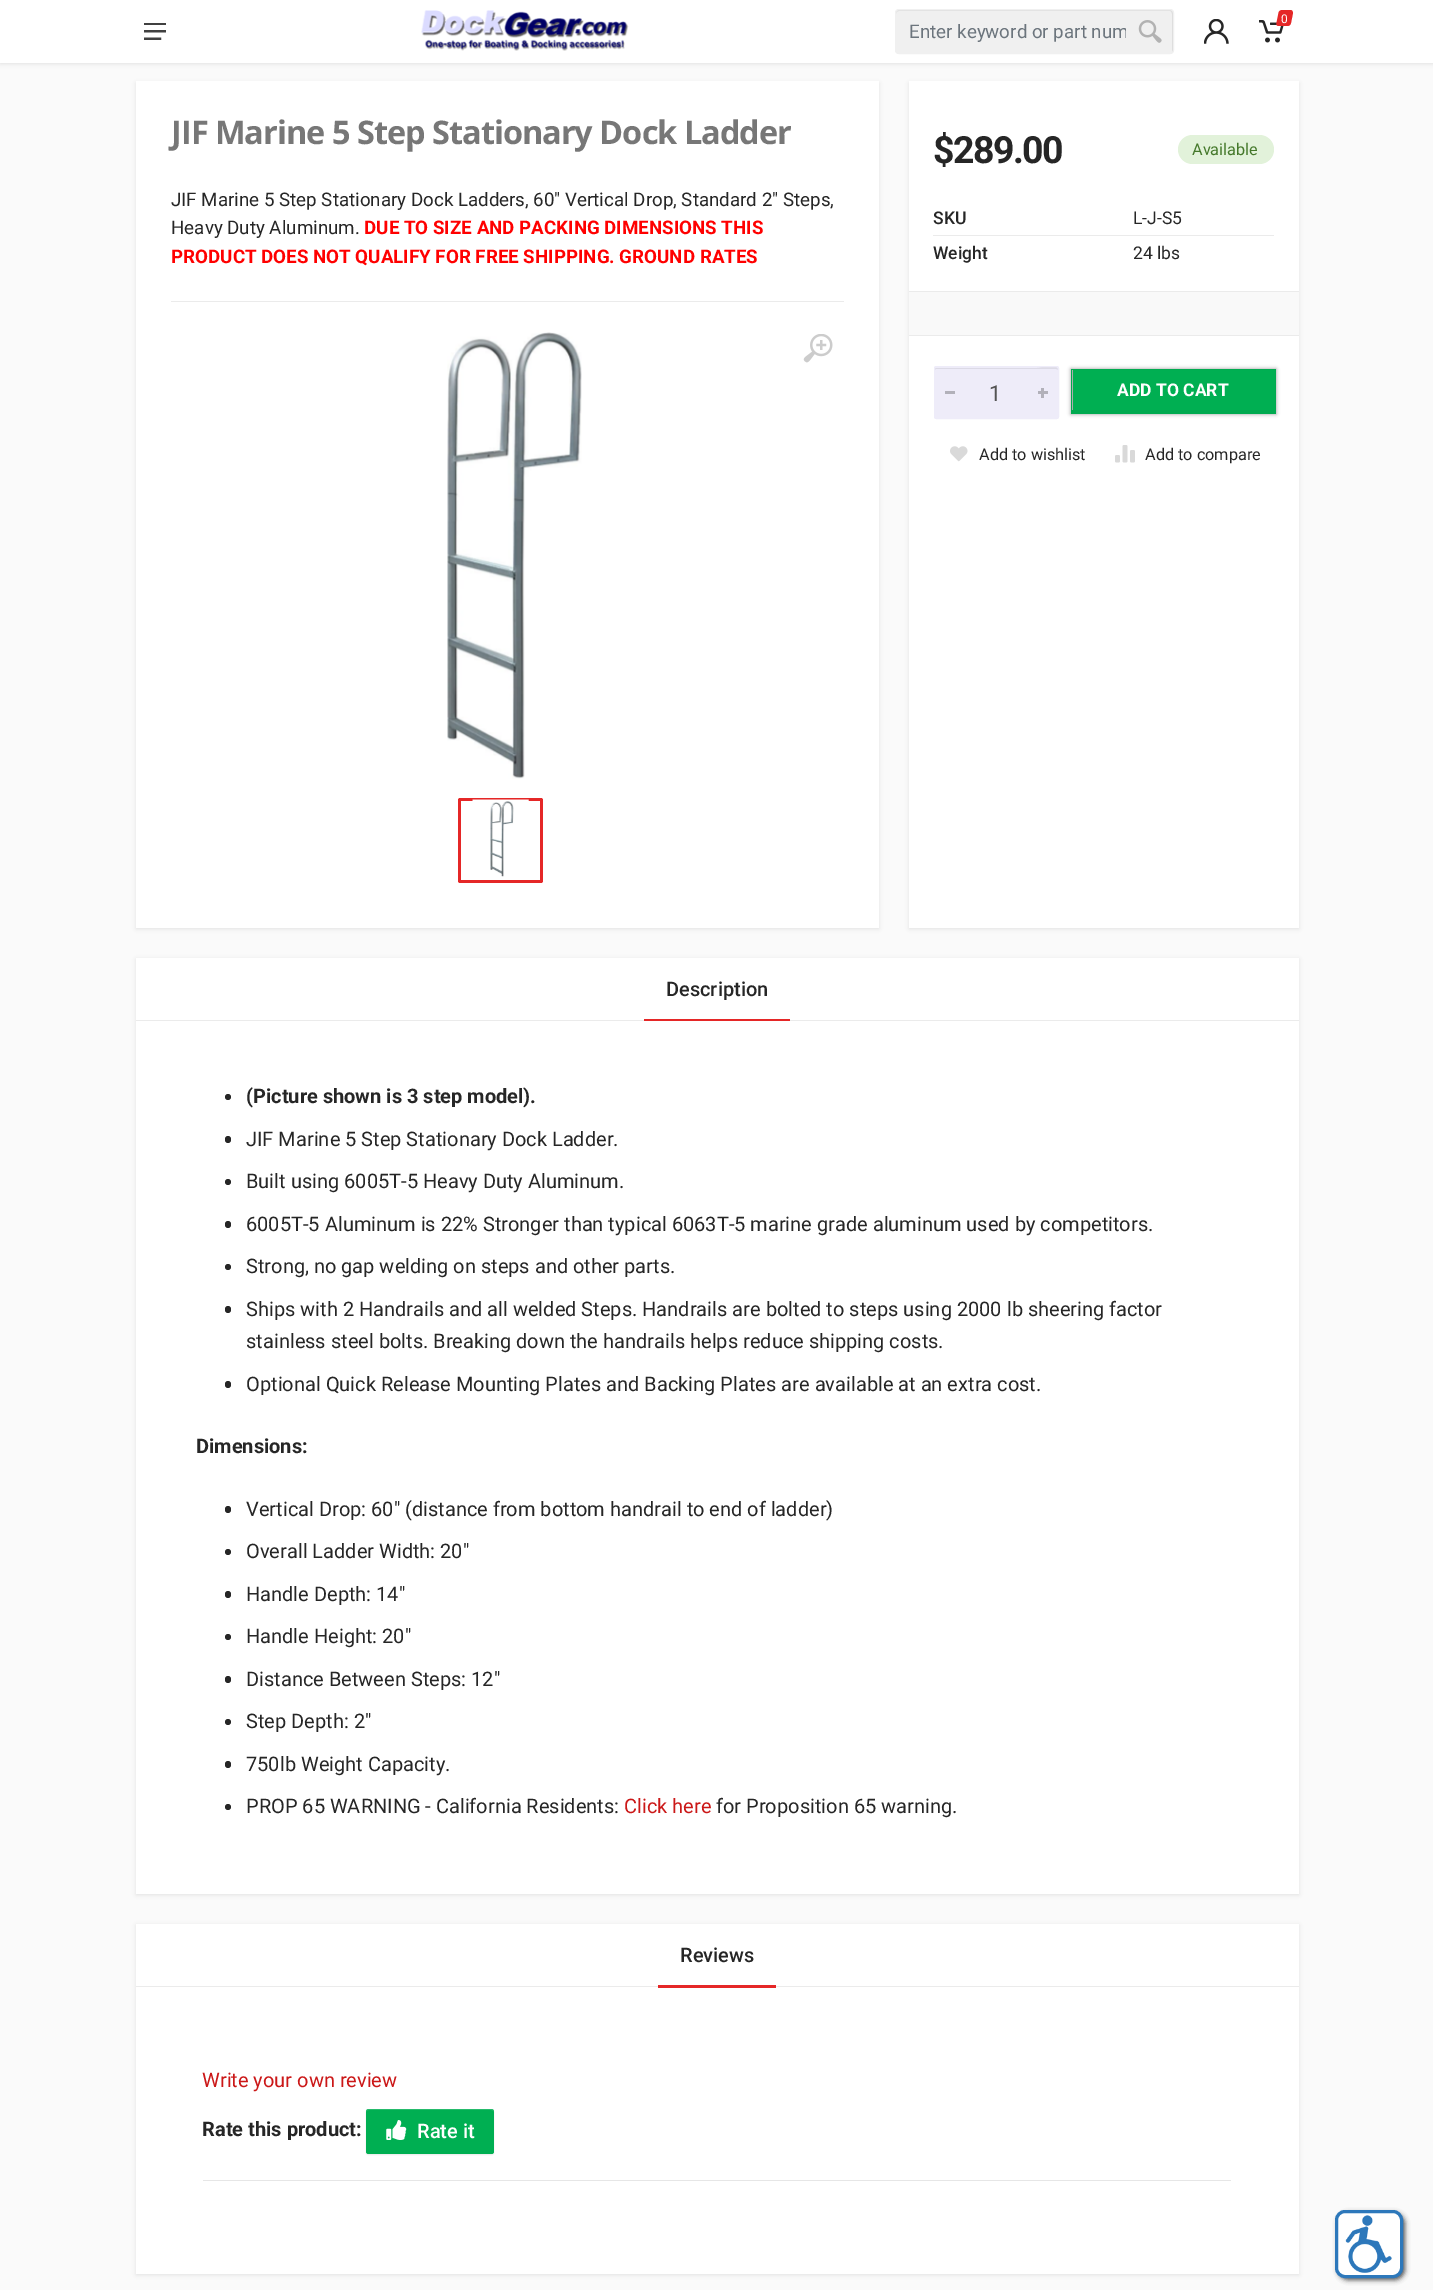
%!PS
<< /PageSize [1433 2290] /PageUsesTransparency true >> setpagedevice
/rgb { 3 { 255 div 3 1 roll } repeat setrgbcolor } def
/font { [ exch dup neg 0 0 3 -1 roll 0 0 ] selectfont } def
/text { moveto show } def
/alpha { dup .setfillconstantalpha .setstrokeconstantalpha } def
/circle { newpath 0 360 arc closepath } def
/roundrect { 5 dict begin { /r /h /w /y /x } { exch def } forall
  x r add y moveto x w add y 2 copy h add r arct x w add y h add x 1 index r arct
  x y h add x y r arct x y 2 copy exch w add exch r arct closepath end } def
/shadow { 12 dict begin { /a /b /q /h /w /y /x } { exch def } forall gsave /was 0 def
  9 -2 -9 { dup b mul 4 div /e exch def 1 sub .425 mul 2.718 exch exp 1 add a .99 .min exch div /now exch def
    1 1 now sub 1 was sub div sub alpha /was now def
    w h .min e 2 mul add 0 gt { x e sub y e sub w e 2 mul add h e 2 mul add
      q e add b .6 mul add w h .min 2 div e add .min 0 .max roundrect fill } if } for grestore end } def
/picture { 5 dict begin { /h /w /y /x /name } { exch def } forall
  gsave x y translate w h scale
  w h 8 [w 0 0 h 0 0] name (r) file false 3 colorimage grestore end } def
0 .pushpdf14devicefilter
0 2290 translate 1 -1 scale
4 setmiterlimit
250 250 250 rgb
0 0 1433 2290 rectfill
0 0 0 rgb
0 1 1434 63 0 2 0.09 shadow
255 255 255 rgb
0 0 1433 63 rectfill
(img_01.rgb) 421 10 208 41 picture
(img_02.rgb) 1204 19 25 25 picture
(img_03.rgb) 1259 20 25 23 picture
229 39 39 rgb
1282 10 moveto 8.5 0 rlineto 1.5 0 2.5 1.5 2.5 3 rcurveto -2 10 rlineto -0.5 2 -2 3 -4 3 rcurveto -8 0 rlineto -2 0 -3 -1 -2.5 -3 rcurveto 2 -10 rlineto 0 -1.5 2 -3 3.5 -3 rcurveto closepath fill
(img_04.rgb) 144 23 22 17 picture
240 240 240 rgb
895 9 279 45 4 roundrect fill
222 222 222 rgb
899 11 moveto 271 0 rlineto 1 0 2 1 2 3 rcurveto 0 39 rlineto 0 -1 1 -2 1 -3 rcurveto 0 -38 rlineto 0 -1 -1 -2 -3 -2 rcurveto -272 0 rlineto -1 0 -2 1 -2 2 rcurveto 0 2 rlineto 0 -2 1 -3 3 -3 rcurveto closepath fill
240 240 240 rgb
895.5 9.5 278 44 3.5 roundrect stroke
(img_05.rgb) 1138 20 24 23 picture
0 0 0 rgb
136 83 743 846 0 2 0.09 shadow
255 255 255 rgb
136 81 743 847 rectfill
0 0 0 rgb
909 83 390 846 0 2 0.09 shadow
255 255 255 rgb
909 81 390 847 rectfill
226 242 218 rgb
1178 135 96 29 14.5 roundrect fill
235 235 235 rgb
933 235 341 1 rectfill
249 249 249 rgb
909 292 390 43 rectfill
235 235 235 rgb
909 291 390 1 rectfill
909 335 390 1 rectfill
238 236 249 rgb
934 366 125 53 2.5 roundrect fill
220 218 230 rgb
936 369 moveto 120 0 rlineto 1 0 2 0 2 1 rcurveto 0 -7 -19 -2 -21 -2 rcurveto -102 0 rlineto 0 2 rlineto closepath fill
238 236 249 rgb
934.5 366.5 124 52 2 roundrect stroke
178 177 186 rgb
945 391 10 3 rectfill
1038 391 10 3 rectfill
1041 388 3 10 rectfill
0 0 0 rgb
1071 369 205 45 0 2 0.42 shadow
0 175 82 rgb
1073 370 202 40 rectfill
1 170 80 rgb
1071 369 205 1 rectfill
1275 369 1 45 rectfill
1071 410 205 4 rectfill
1071 369 1 45 rectfill
(img_06.rgb) 950 446 18 16 picture
(img_07.rgb) 1115 445 20 18 picture
235 235 235 rgb
171 301 673 1 rectfill
(img_08.rgb) 447 332 135 447 picture
(img_09.rgb) 803 334 30 29 picture
229 39 39 rgb
460 798 moveto -1 0 -2 1 -2 2 rcurveto 0 81 rlineto 0 1 1 2 2 2 rcurveto 81 0 rlineto 1 0 2 -1 2 -2 rcurveto 0 -81 rlineto 0 -1 -1 -2 -2 -2 rcurveto closepath 461 801 moveto 0 79 rlineto 79 0 rlineto 0 -79 rlineto closepath eofill
(img_10.rgb) 472 799 57 78 picture
0 0 0 rgb
136 959 1163 936 0 2 0.09 shadow
255 255 255 rgb
136 958 1163 936 rectfill
235 235 235 rgb
136 1020 1163 1 rectfill
229 39 39 rgb
644 1019 146 2 rectfill
38 38 38 rgb
228 1097 3 circle fill
225 1136 6 7 3 roundrect fill
228 1182 3 circle fill
225 1221 6 7 3 roundrect fill
228 1267 3 circle fill
225 1306 6 7 3 roundrect fill
225 1381 6 7 3 roundrect fill
225 1506 6 7 3 roundrect fill
228 1552 3 circle fill
225 1591 6 7 3 roundrect fill
228 1637 3 circle fill
225 1676 6 7 3 roundrect fill
228 1722 3 circle fill
225 1761 6 7 3 roundrect fill
228 1807 3 circle fill
0 0 0 rgb
136 1925 1163 350 0 2 0.09 shadow
255 255 255 rgb
136 1924 1163 350 rectfill
235 235 235 rgb
136 1986 1163 1 rectfill
229 39 39 rgb
658 1985 118 3 rectfill
0 0 0 rgb
366 2110 128 45 2.5 0.5 0.07 shadow
0 175 82 rgb
366 2109 128 45 2.5 roundrect fill
0.15 alpha
255 255 255 rgb
369 2110 moveto 122 0 rlineto 2 0 3 1 3 2 rcurveto 0 -2 -1 -3 -2 -3 rcurveto -124 0 rlineto -1 0 -2 1 -2 3 rcurveto 0 -1 1 -2 3 -2 rcurveto closepath fill
1 alpha
(img_11.rgb) 386 2120 21 20 picture
230 230 230 rgb
203 2180 1028 1 rectfill
85 85 85 rgb
1338 2213 67 67 10 2.5 1 shadow
255 255 255 rgb
1336.5 2211.5 65 65 8.5 roundrect gsave fill grestore
45 120 187 rgb
3 setlinewidth
stroke
(img_12.rgb) 1345 2215 47 58 picture
/Roboto-Regular 12 font
255 255 255 rgb
(0) 1281 23 text
gsave
910 20 216 23 rectclip
/Roboto-Regular 18.75 font
108 117 125 rgb
(Enter keyword or part num) 909 38 text
grestore
/OpenSans-Bold 32.5 font
119 119 119 rgb
171 144 moveto -1 0 (JIF Marine 5 Step Stationary Dock Ladder) ashow
/Roboto-Bold 37.5 font
38 38 38 rgb
933 163 moveto -1.5 0 ($289.00) ashow
/Roboto-Regular 16.25 font
68 120 42 rgb
(Available) 1192 155 text
/Roboto-Medium 17.5 font
38 38 38 rgb
(SKU) 933 224 text
/Roboto-Regular 17.5 font
(L-J-S5) 1133 224 text
/Roboto-Medium 17.5 font
(Weight) 933 259 text
/Roboto-Regular 17.5 font
(24 lbs) 1133 259 text
/Roboto-Regular 22 font
84 84 84 rgb
(1) 989 401 text
/Roboto-Bold 17.5 font
255 255 255 rgb
(ADD TO CART) 1117 396 text
/Roboto-Regular 16.25 font
38 38 38 rgb
(Add to wishlist) 979 460 text
(Add to compare) 1145 460 text
/Roboto-Regular 18.75 font
(JIF Marine 5 Step Stationary Dock Ladders, 60" Vertical Drop, Standard 2" Steps,) 171 206 text
(Heavy Duty Aluminum.) 171 234 text
/Roboto-Bold 18.75 font
255 0 0 rgb
(DUE TO SIZE AND PACKING DIMENSIONS THIS) 364 234 text
(PRODUCT DOES NOT QUALIFY FOR FREE SHIPPING. GROUND RATES) 171 263 text
/Roboto-Medium 20 font
38 38 38 rgb
(Description) 666 996 text
/Roboto-Bold 20 font
(\(Picture shown is 3 step model\).) 246 1103 text
/Roboto-Regular 20 font
(JIF Marine 5 Step Stationary Dock Ladder.) 246 1146 text
(Built using 6005T-5 Heavy Duty Aluminum.) 246 1188 text
(6005T-5 Aluminum is 22% Stronger than typical 6063T-5 marine grade aluminum used by competitors.) 246 1231 text
(Strong, no gap welding on steps and other parts.) 246 1273 text
(Ships with 2 Handrails and all welded Steps. Handrails are bolted to steps using 2000 lb sheering factor) 246 1316 text
(stainless steel bolts. Breaking down the handrails helps reduce shipping costs.) 246 1348 text
(Optional Quick Release Mounting Plates and Backing Plates are available at an extra cost.) 246 1391 text
/Roboto-Bold 20 font
(Dimensions:) 196 1453 text
/Roboto-Regular 20 font
(Vertical Drop: 60" \(distance from bottom handrail to end of ladder\)) 246 1516 text
(Overall Ladder Width: 20") 246 1558 text
(Handle Depth: 14") 246 1601 text
(Handle Height: 20") 246 1643 text
(Distance Between Steps: 12") 246 1686 text
(Step Depth: 2") 246 1728 text
(750lb Weight Capacity.) 246 1771 text
(PROP 65 WARNING - California Residents:) 246 1813 text
203 24 24 rgb
(Click here) 624 1813 text
38 38 38 rgb
(for Proposition 65 warning.) 716 1813 text
/Roboto-Medium 20 font
(Reviews) 680 1962 text
/Roboto-Regular 20 font
203 24 24 rgb
(Write your own review) 202 2087 text
/Roboto-Bold 20 font
38 38 38 rgb
(Rate this product:) 202 2136 text
/Roboto-Medium 20 font
255 255 255 rgb
(Rate it) 417 2138 text
.poppdf14devicefilter showpage
